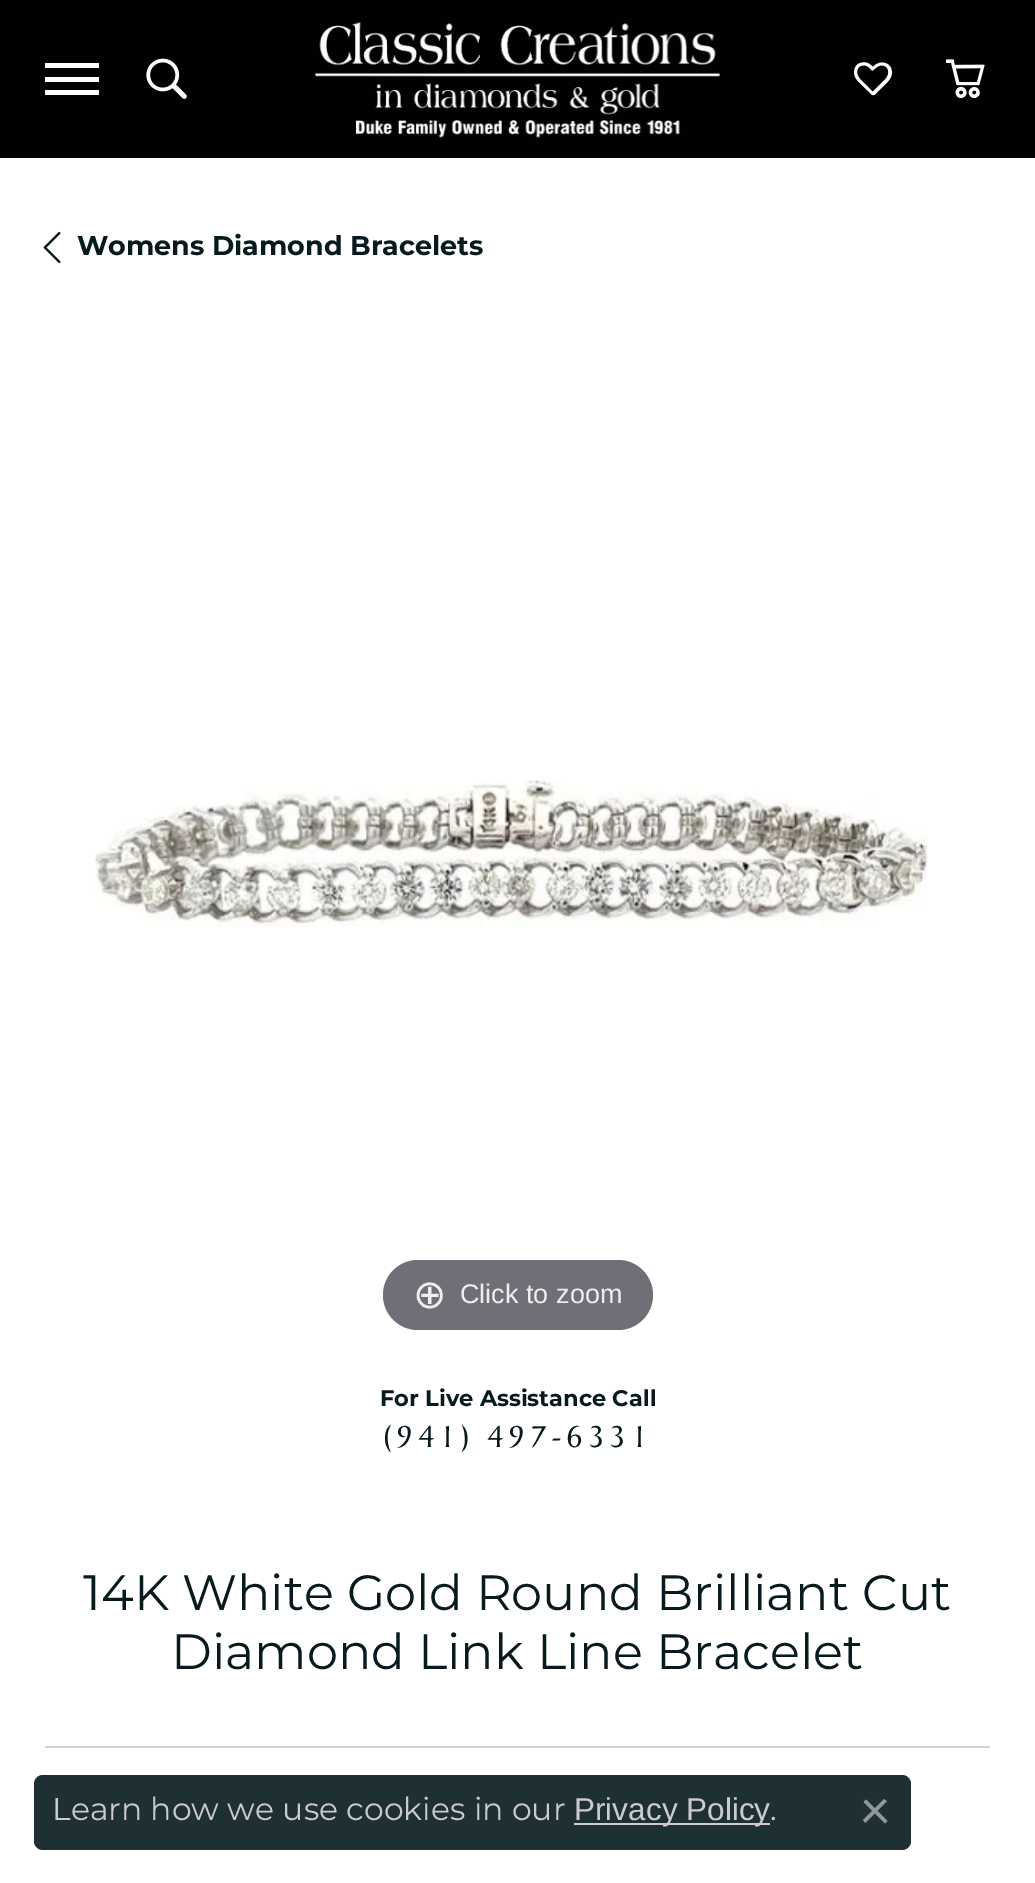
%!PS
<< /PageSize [1035 1883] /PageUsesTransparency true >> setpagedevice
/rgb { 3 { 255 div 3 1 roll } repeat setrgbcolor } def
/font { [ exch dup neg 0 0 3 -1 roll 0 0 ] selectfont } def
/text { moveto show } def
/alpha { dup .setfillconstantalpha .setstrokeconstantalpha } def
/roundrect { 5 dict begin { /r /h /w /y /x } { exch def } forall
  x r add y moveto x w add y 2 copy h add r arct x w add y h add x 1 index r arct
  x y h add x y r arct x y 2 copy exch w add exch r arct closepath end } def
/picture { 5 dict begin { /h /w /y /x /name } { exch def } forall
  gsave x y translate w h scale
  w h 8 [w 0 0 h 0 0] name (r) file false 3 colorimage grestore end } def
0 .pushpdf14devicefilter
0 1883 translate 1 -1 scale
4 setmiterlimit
255 255 255 rgb
0 0 1035 1883 rectfill
1 1 1 rgb
0 0 1035 158 rectfill
255 255 255 rgb
45 63 54 5 rectfill
45 77 54 5 rectfill
45 90 54 5 rectfill
(img_01.rgb) 146 58 41 41 picture
(img_02.rgb) 315 22 405 116 picture
(img_03.rgb) 853 62 40 34 picture
(img_04.rgb) 945 59 40 40 picture
(img_05.rgb) 43 231 18 33 picture
(img_06.rgb) 95 779 833 148 picture
111 112 119 rgb
383 1260 270 70 35 roundrect fill
211 213 213 rgb
45 1746 945 2 rectfill
0.9 alpha
7 26 30 rgb
34 1775 877 75 9 roundrect fill
1 alpha
204 204 204 rgb
574 1823 196 2 rectfill
(img_07.rgb) 863 1799 25 25 picture
/Montserrat-Bold 27 font
7 26 30 rgb
(Womens Diamond Bracelets) 77 255 text
/DejaVuSans-Regular 40 font
238 238 238 rgb
(⊕) 413 1308 text
/LiberationSans-Regular 27 font
(Click to zoom) 460 1303 text
/Montserrat-Bold 22.5 font
7 26 30 rgb
(For Live Assistance Call) 380 1406 text
/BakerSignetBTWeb-Regular 32.5 font
383 1447 moveto 4.5 0 (\(941\) 497-6331) ashow
/Montserrat-Regular 49.5 font
(14K White Gold Round Brilliant Cut) 83 1610 text
(Diamond Link Line Bracelet) 171 1669 text
/Montserrat-Regular 31.5 font
204 204 204 rgb
(Learn how we use cookies in our) 52 1820 text
/LiberationSans-Regular 31.5 font
(Privacy Policy) 574 1820 text
/Montserrat-Regular 31.5 font
(.) 770 1820 text
.poppdf14devicefilter showpage
